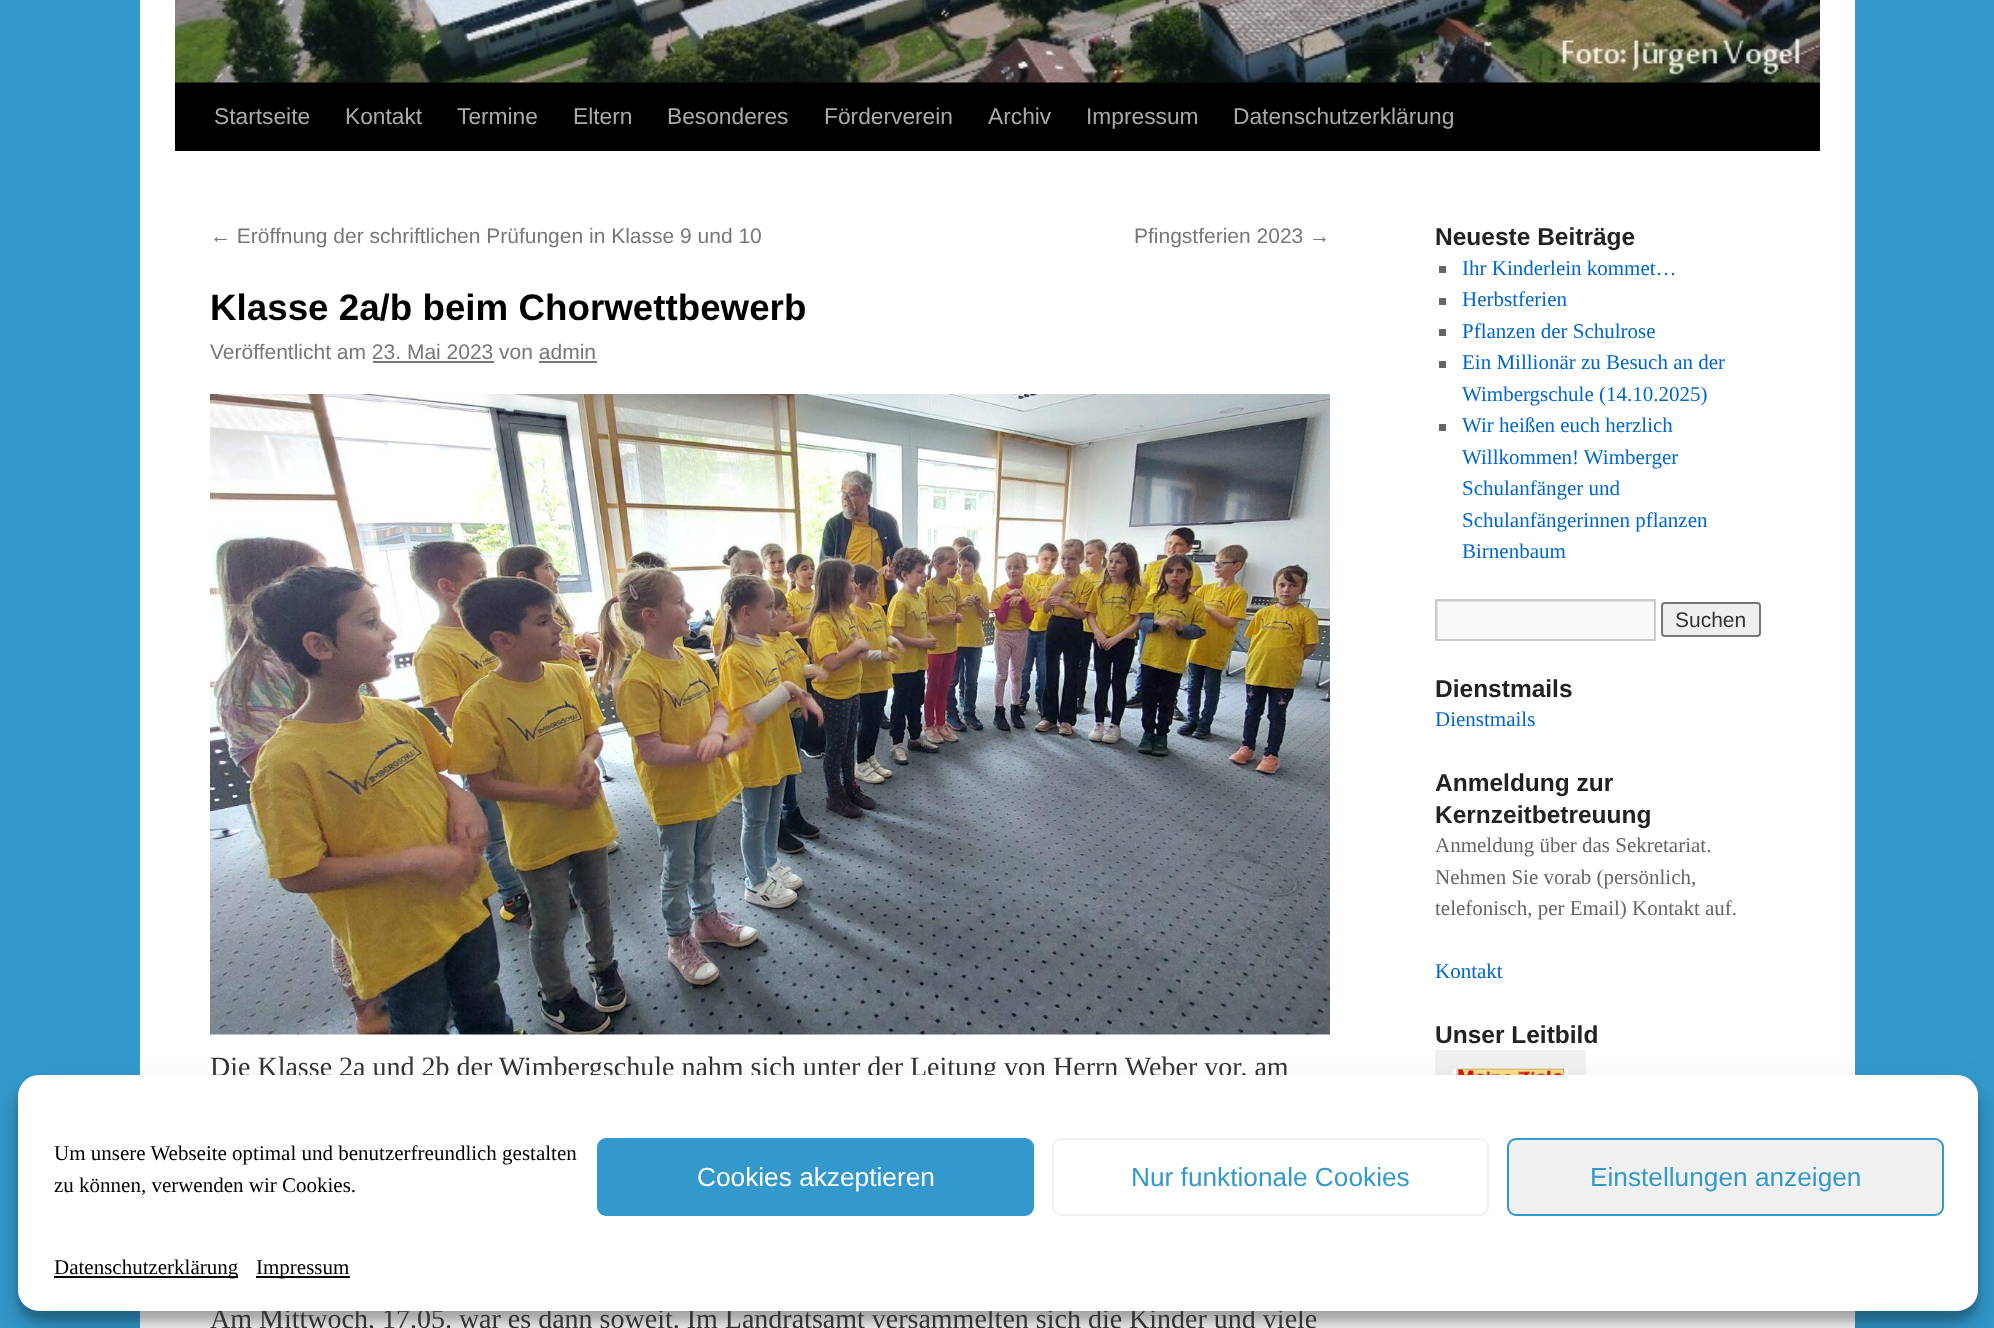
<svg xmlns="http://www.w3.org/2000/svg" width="1994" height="1328">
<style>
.a{font:22.75px Liberation Sans;fill:#aaa}
.b{font:21px Liberation Sans;fill:#777}
.c{font:bold 36.75px Liberation Sans;fill:#000}
.d{font:28px Liberation Serif;fill:#333}
.e{font:bold 24.5px Liberation Sans;fill:#222}
.f{font:21px Liberation Serif;fill:#06c}
.g{font:21px Liberation Sans;fill:#333}
.h{font:21px Liberation Serif;fill:#666}
.i{font:21px Liberation Serif;fill:#000}
.j{font:26.25px Liberation Sans;fill:#fff}
.k{font:26.25px Liberation Sans;fill:#39c}
</style>
<defs>
<clipPath id="clip1"><path d="M1437 600h217v39H1437z"/></clipPath>
</defs>
<rect width="100%" height="100%" fill="#39c"/>
<path fill="#fff" d="M140 0h1715v1328H140z"/>
<path fill="#000" d="M175 82h1645v69H175z"/>
<image href="1.png" x="175" y="0" width="1645" height="83"/>
<path fill="#777" d="M373 361h121v2H373z"/>
<path fill="#777" d="M539 361h58v2H539z"/>
<image href="2.png" x="210" y="394" width="1120" height="641"/>
<path fill="#666" d="M1439 266h7v7H1439z"/>
<path fill="#666" d="M1439 298h7v7H1439z"/>
<path fill="#666" d="M1439 329h7v7H1439z"/>
<path fill="#666" d="M1439 361h7v7H1439z"/>
<path fill="#666" d="M1439 424h7v7H1439z"/>
<path fill="#f9f9f9" d="M1438 602h216v37H1438z"/>
<g clip-path="url(#clip1)">
<path fill="#e0e0e0" fill-rule="evenodd" d="M1264 427h563v385h-563zm174 175h218v38h-218z"/>
</g>
<path fill="none" stroke="#ccc" stroke-width="2" d="M1436 600h219v40H1436z"/>
<rect fill="#efefef" stroke="#767676" stroke-width="2" x="1662" y="603" width="98" height="33" rx="3"/>
<path fill="none" stroke="#f1f1f1" stroke-width="18" d="M1444 1059h133v178H1444z"/>
<image href="3.png" x="1452" y="1068" width="116" height="7"/>
<rect fill="#0000003b" filter="blur(5px)" x="18" y="1085" width="1960" height="236" rx="21"/>
<rect fill="#00000030" filter="blur(17.5px)" x="18" y="1092" width="1960" height="236" rx="21"/>
<text class="a" x="214" y="124">Startseite</text>
<text class="a" x="345" y="124">Kontakt</text>
<text class="a" x="457" y="124">Termine</text>
<text class="a" x="573" y="124">Eltern</text>
<text class="a" x="667" y="124">Besonderes</text>
<text class="a" x="824" y="124">Förderverein</text>
<text class="a" x="988" y="124">Archiv</text>
<text class="a" x="1086" y="124">Impressum</text>
<text class="a" x="1233" y="124">Datenschutzerklärung</text>
<text class="b" x="210" y="243">← Eröffnung der schriftlichen Prüfungen in Klasse 9 und 10</text>
<text class="b" x="1134" y="243">Pfingstferien 2023 →</text>
<text class="c" x="210" y="320">Klasse 2a/b beim Chorwettbewerb</text>
<text class="b" x="210" y="359">Veröffentlicht am 23. Mai 2023 von admin</text>
<text class="d" x="210" y="1076">Die Klasse 2a und 2b der Wimbergschule nahm sich unter der Leitung von Herrn Weber vor, am</text>
<text class="d" x="210" y="1328">Am Mittwoch, 17.05. war es dann soweit. Im Landratsamt versammelten sich die Kinder und viele</text>
<text class="e" x="1435" y="245">Neueste Beiträge</text>
<text class="f" x="1462" y="275">Ihr Kinderlein kommet…</text>
<text class="f" x="1462" y="306">Herbstferien</text>
<text class="f" x="1462" y="338">Pflanzen der Schulrose</text>
<text class="f" x="1462" y="369">Ein Millionär zu Besuch an der</text>
<text class="f" x="1462" y="401">Wimbergschule (14.10.2025)</text>
<text class="f" x="1462" y="432">Wir heißen euch herzlich</text>
<text class="f" x="1462" y="464">Willkommen! Wimberger</text>
<text class="f" x="1462" y="495">Schulanfänger und</text>
<text class="f" x="1462" y="527">Schulanfängerinnen pflanzen</text>
<text class="f" x="1462" y="558">Birnenbaum</text>
<text class="g" x="1675" y="627">Suchen</text>
<text class="e" x="1435" y="697">Dienstmails</text>
<text class="f" x="1435" y="726">Dienstmails</text>
<text class="e" x="1435" y="791">Anmeldung zur</text>
<text class="e" x="1435" y="823">Kernzeitbetreuung</text>
<text class="h" x="1435" y="852">Anmeldung über das Sekretariat.</text>
<text class="h" x="1435" y="884">Nehmen Sie vorab (persönlich,</text>
<text class="h" x="1435" y="915">telefonisch, per Email) Kontakt auf.</text>
<text class="f" x="1435" y="978">Kontakt</text>
<text class="e" x="1435" y="1043">Unser Leitbild</text>
<rect fill="#fff" stroke="#fff" stroke-width="2" x="19" y="1076" width="1958" height="234" rx="20"/>
<text class="i" x="54" y="1160">Um unsere Webseite optimal und benutzerfreundlich gestalten</text>
<text class="i" x="54" y="1192">zu können, verwenden wir Cookies.</text>
<rect fill="#39c" stroke="#39c" stroke-width="2" x="598" y="1139" width="435" height="76" rx="8"/>
<text class="j" x="697" y="1186">Cookies akzeptieren</text>
<rect fill="none" stroke="#f1f1f1" stroke-width="2" x="1053" y="1139" width="435" height="76" rx="8"/>
<text class="k" x="1131" y="1186">Nur funktionale Cookies</text>
<rect fill="#f1f1f1" stroke="#39c" stroke-width="2" x="1508" y="1139" width="435" height="76" rx="8"/>
<text class="k" x="1590" y="1186">Einstellungen anzeigen</text>
<path fill="#000" d="M54 1276h184v2H54z"/>
<text class="i" x="54" y="1274">Datenschutzerklärung</text>
<path fill="#000" d="M256 1276h94v2H256z"/>
<text class="i" x="256" y="1274">Impressum</text>
</svg>
